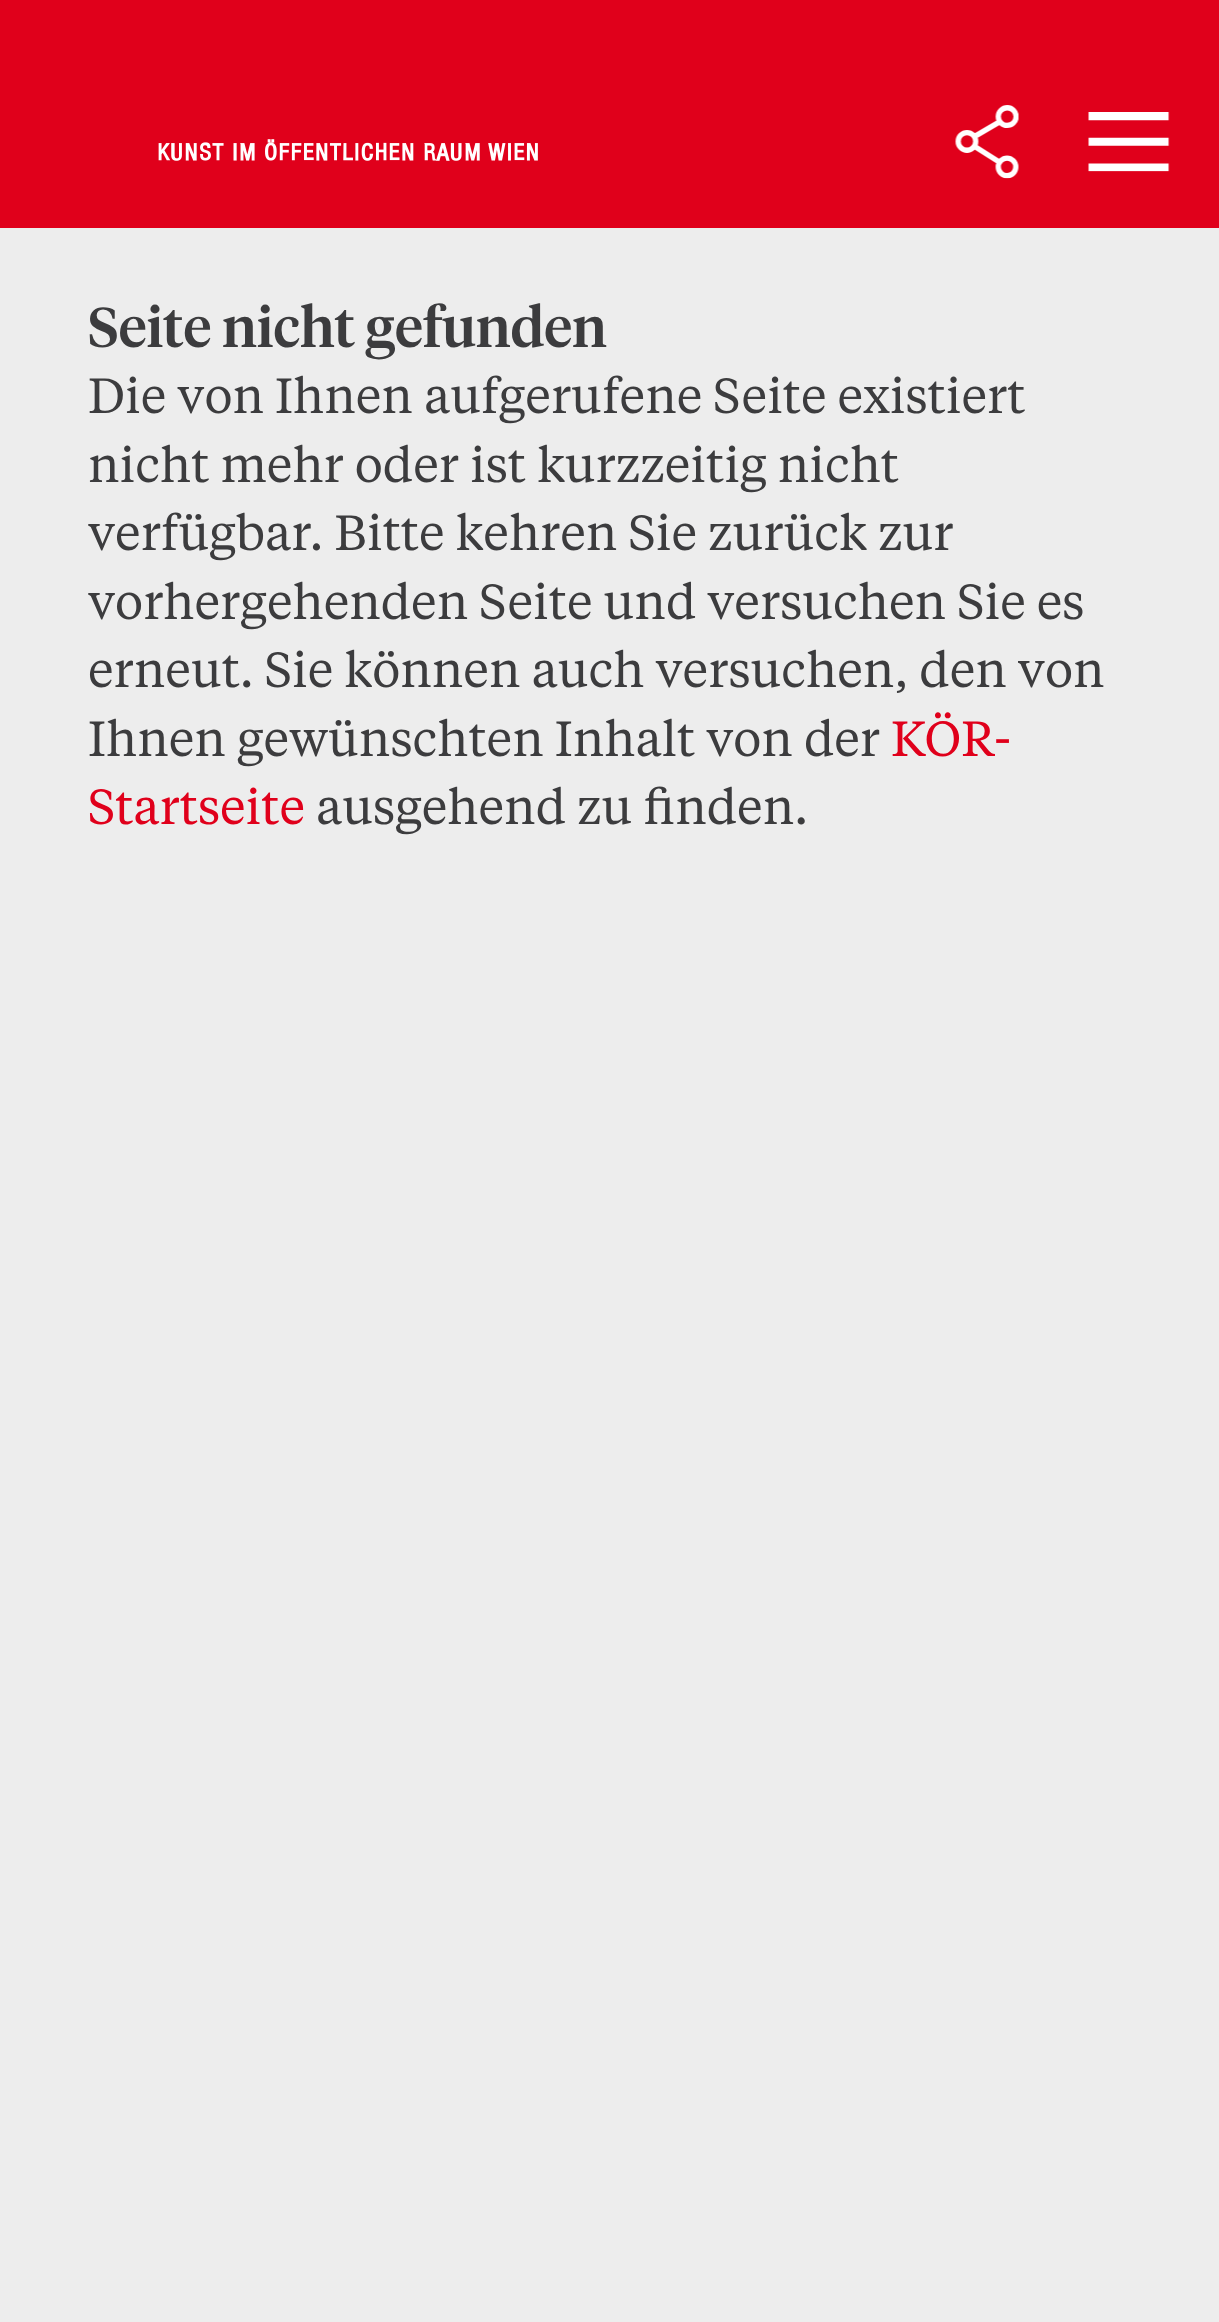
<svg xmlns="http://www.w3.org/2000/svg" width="1219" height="2322">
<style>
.a{font:500 56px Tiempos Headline;fill:#3c3c3e}
.b{font:49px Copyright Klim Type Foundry;fill:#3c3c3e}
.c{font:49px Copyright Klim Type Foundry;fill:#e0001b}
</style>
<rect width="100%" height="100%" fill="#ededed"/>
<path fill="#e0001b" d="M0 0h1219v228H0z"/>
<image href="1.png" x="158" y="139" width="380" height="22"/>
<image href="2.png" x="955" y="105" width="64" height="74"/>
<image href="3.png" x="1088" y="112" width="82" height="60"/>
<text class="a" x="88" y="347">Seite nicht gefunden</text>
<text class="b" x="88" y="413">Die von Ihnen aufgerufene Seite existiert</text>
<text class="b" x="88" y="482">nicht mehr oder ist kurzzeitig nicht</text>
<text class="b" x="88" y="550">verfügbar. Bitte kehren Sie zurück zur</text>
<text class="b" x="88" y="619">vorhergehenden Seite und versuchen Sie es</text>
<text class="b" x="88" y="687">erneut. Sie können auch versuchen, den von</text>
<text class="b" x="88" y="756">Ihnen gewünschten Inhalt von der</text>
<text class="c" x="891" y="756">KÖR-</text>
<text class="c" x="88" y="824">Startseite</text>
<text class="b" x="316" y="824">ausgehend zu finden.</text>
</svg>
